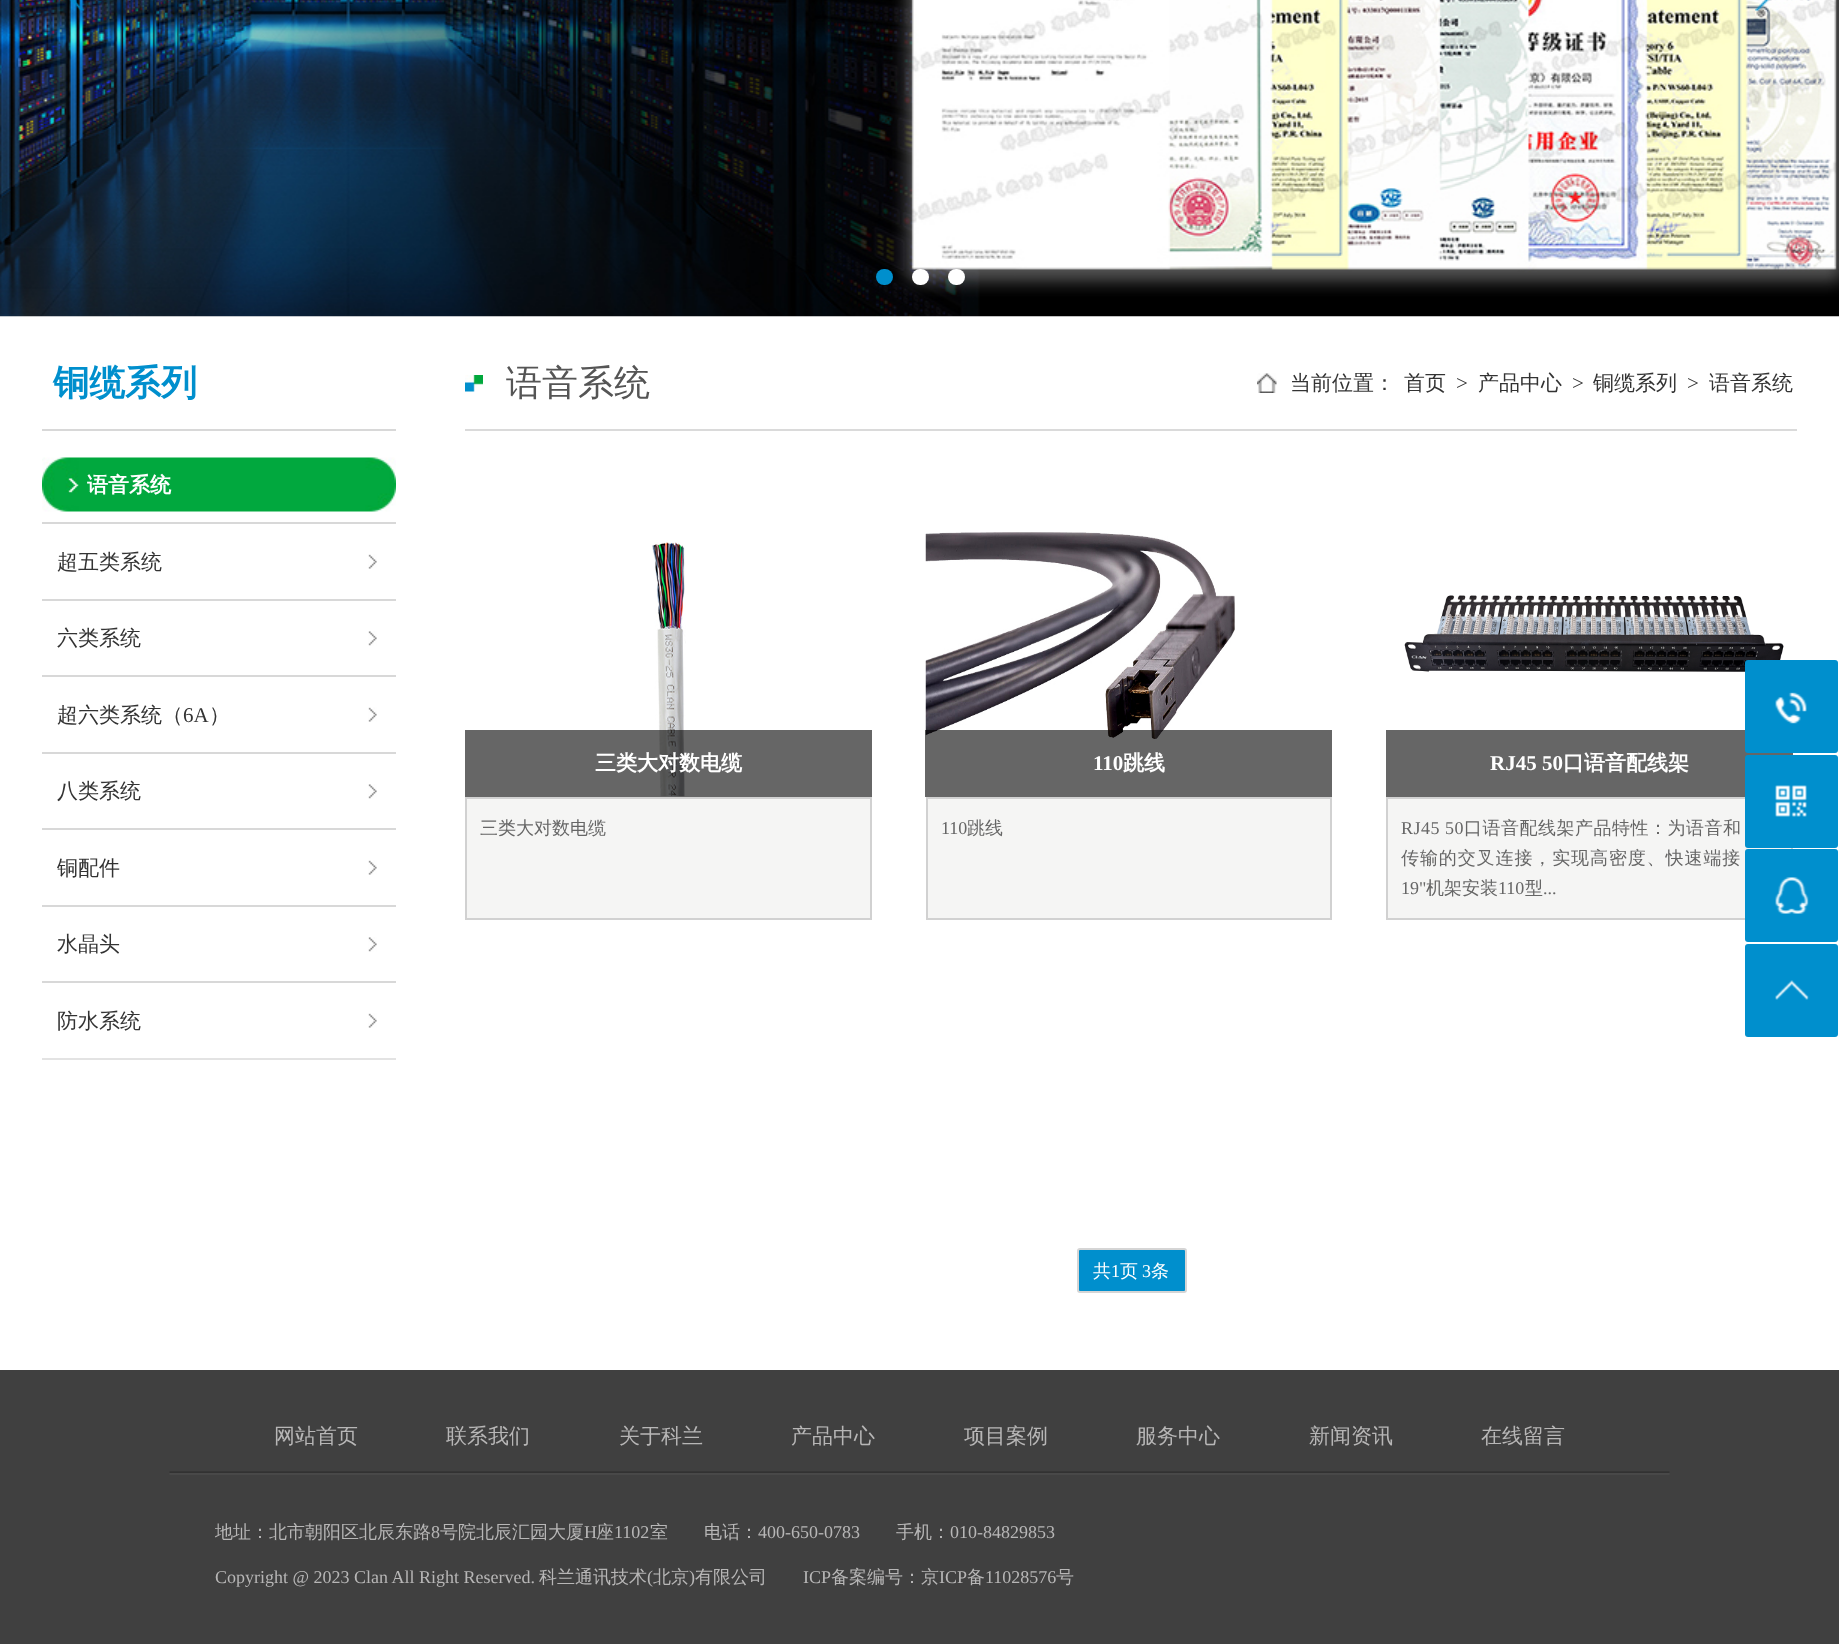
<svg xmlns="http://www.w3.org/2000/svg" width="1839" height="1644">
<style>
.a{font:bold 36px WenQuanYi Zen Hei;fill:#008fcd}
.b{font:bold 21px WenQuanYi Zen Hei;fill:#fff}
.c{font:500 21px WenQuanYi Zen Hei;fill:#333}
.d{font:21px Liberation Serif;fill:#333}
.e{font:500 36px WenQuanYi Zen Hei;fill:#555}
.f{font:500 18px WenQuanYi Zen Hei;fill:#666}
.g{font:bold 21px Liberation Serif;fill:#fff}
.h{font:18px Liberation Serif;fill:#666}
.i{font:18px Liberation Serif;letter-spacing:0.5px;fill:#666}
.j{font:500 18px WenQuanYi Zen Hei;letter-spacing:0.5px;fill:#666}
.k{font:500 18px WenQuanYi Zen Hei;letter-spacing:0.9px;fill:#666}
.l{font:500 18px WenQuanYi Zen Hei;fill:#fff}
.m{font:18px Liberation Serif;fill:#fff}
.n{font:500 21px WenQuanYi Zen Hei;fill:#b7b6b6}
.o{font:500 18px WenQuanYi Zen Hei;fill:#b7b6b6}
.p{font:18px Liberation Serif;fill:#b7b6b6}
</style>
<rect width="100%" height="100%" fill="#fff"/>
<image href="1.png" x="0" y="0" width="1839" height="317"/>
<image href="2.png" x="69" y="0" width="15" height="11"/>
<image href="3.png" x="1755" y="0" width="15" height="11"/>
<rect fill="#008fcd" x="876" y="269" width="17" height="16" rx="8"/>
<rect fill="#fff" x="912" y="269" width="17" height="16" rx="8"/>
<rect fill="#fff" x="948" y="269" width="17" height="16" rx="8"/>
<path fill="#e3e3e3" d="M42 1058h354v2H42z"/>
<path fill="#d8d8d8" d="M42 429h354v2H42z"/>
<image href="4.png" x="42" y="457" width="354" height="55"/>
<image href="5.png" x="368" y="554" width="9" height="15"/>
<path fill="#d8d8d8" d="M42 522h354v2H42z"/>
<image href="6.png" x="368" y="631" width="9" height="15"/>
<path fill="#d8d8d8" d="M42 599h354v2H42z"/>
<image href="5.png" x="368" y="707" width="9" height="15"/>
<path fill="#d8d8d8" d="M42 675h354v2H42z"/>
<image href="6.png" x="368" y="784" width="9" height="15"/>
<path fill="#d8d8d8" d="M42 752h354v2H42z"/>
<image href="5.png" x="368" y="860" width="9" height="15"/>
<path fill="#d8d8d8" d="M42 828h354v2H42z"/>
<image href="6.png" x="368" y="937" width="9" height="15"/>
<path fill="#d8d8d8" d="M42 905h354v2H42z"/>
<image href="5.png" x="368" y="1013" width="9" height="15"/>
<path fill="#d8d8d8" d="M42 981h354v2H42z"/>
<image href="7.png" x="465" y="375" width="18" height="17"/>
<path fill="#dadada" d="M465 429h1332v2H465z"/>
<image href="8.png" x="1257" y="373" width="20" height="20"/>
<image href="9.png" x="652" y="542" width="34" height="255"/>
<path fill="#00000099" d="M465 730h407v67H465z"/>
<path fill="#f5f5f4" stroke="#d1d1d1" stroke-width="2" d="M466 798h405v121H466z"/>
<image href="10.png" x="925" y="532" width="310" height="207"/>
<path fill="#00000099" d="M925 730h407v67H925z"/>
<path fill="#f5f5f4" stroke="#d1d1d1" stroke-width="2" d="M927 798h404v121H927z"/>
<image href="11.png" x="1404" y="595" width="380" height="77"/>
<path fill="#666" d="M1386 730h407v67H1386z"/>
<path fill="#f5f5f4" stroke="#d1d1d1" stroke-width="2" d="M1387 798h405v121H1387z"/>
<rect fill="#008fcd" stroke="#d5d5d5" stroke-width="2" x="1078" y="1249" width="108" height="43" rx="2"/>
<rect fill="#008fcd" x="1745" y="660" width="93" height="93" rx="3"/>
<image href="12.png" x="1775" y="692" width="32" height="32"/>
<rect fill="#008fcd" x="1745" y="755" width="93" height="93" rx="3"/>
<image href="13.png" x="1775" y="785" width="32" height="32"/>
<rect fill="#008fcd" x="1745" y="849" width="93" height="93" rx="3"/>
<image href="14.png" x="1775" y="877" width="34" height="37"/>
<rect fill="#008fcd" x="1745" y="944" width="93" height="93" rx="3"/>
<image href="15.png" x="1775" y="980" width="34" height="20"/>
<path fill="#404040" d="M0 1370h1839v274H0z"/>
<image href="16.png" x="169" y="1471" width="1501" height="4"/>
<text class="a" x="53" y="395">铜缆系列</text>
<text class="b" x="87" y="492">语音系统</text>
<text class="c" x="57" y="569">超五类系统</text>
<text class="c" x="57" y="645">六类系统</text>
<text class="c" x="57" y="722">超六类系统（</text>
<text class="d" x="183" y="722">6A</text>
<text class="c" x="209" y="722">）</text>
<text class="c" x="57" y="798">八类系统</text>
<text class="c" x="57" y="875">铜配件</text>
<text class="c" x="57" y="951">水晶头</text>
<text class="c" x="57" y="1028">防水系统</text>
<text class="e" x="506" y="395">语音系统</text>
<text class="c" x="1290" y="390">当前位置：</text>
<text class="c" x="1404" y="390">首页</text>
<text class="d" x="1456" y="390">&gt;</text>
<text class="c" x="1478" y="390">产品中心</text>
<text class="d" x="1572" y="390">&gt;</text>
<text class="c" x="1593" y="390">铜缆系列</text>
<text class="d" x="1687" y="390">&gt;</text>
<text class="c" x="1709" y="390">语音系统</text>
<text class="b" x="595" y="770">三类大对数电缆</text>
<text class="f" x="480" y="834">三类大对数电缆</text>
<text class="g" x="1093" y="770">110</text>
<text class="b" x="1123" y="770">跳线</text>
<text class="h" x="941" y="834">110</text>
<text class="f" x="967" y="834">跳线</text>
<text class="g" x="1490" y="770">RJ45 50</text>
<text class="b" x="1563" y="770">口语音配线架</text>
<text class="i" x="1401" y="834">RJ45 50</text>
<text class="j" x="1464" y="834">口语音配线架产品特性：为语音和</text>
<text class="k" x="1401" y="864">传输的交叉连接，实现高密度、快速端接</text>
<text class="h" x="1401" y="894">19"</text>
<text class="f" x="1426" y="894">机架安装</text>
<text class="h" x="1498" y="894">110</text>
<text class="f" x="1525" y="894">型</text>
<text class="h" x="1543" y="894">...</text>
<text class="l" x="1093" y="1277">共</text>
<text class="m" x="1111" y="1277">1</text>
<text class="l" x="1120" y="1277">页</text>
<text class="m" x="1142" y="1277">3</text>
<text class="l" x="1151" y="1277">条</text>
<text class="n" x="274" y="1443">网站首页</text>
<text class="n" x="446" y="1443">联系我们</text>
<text class="n" x="619" y="1443">关于科兰</text>
<text class="n" x="791" y="1443">产品中心</text>
<text class="n" x="964" y="1443">项目案例</text>
<text class="n" x="1136" y="1443">服务中心</text>
<text class="n" x="1309" y="1443">新闻资讯</text>
<text class="n" x="1481" y="1443">在线留言</text>
<text class="o" x="215" y="1538">地址：北市朝阳区北辰东路</text>
<text class="p" x="431" y="1538">8</text>
<text class="o" x="440" y="1538">号院北辰汇园大厦</text>
<text class="p" x="584" y="1538">H</text>
<text class="o" x="596" y="1538">座</text>
<text class="p" x="614" y="1538">1102</text>
<text class="o" x="650" y="1538">室　　电话：</text>
<text class="p" x="758" y="1538">400-650-0783</text>
<text class="o" x="896" y="1538">手机：</text>
<text class="p" x="950" y="1538">010-84829853</text>
<text class="p" x="215" y="1583">Copyright @ 2023 Clan All Right Reserved.</text>
<text class="o" x="539" y="1583">科兰通讯技术</text>
<text class="p" x="647" y="1583">(</text>
<text class="o" x="653" y="1583">北京</text>
<text class="p" x="689" y="1583">)</text>
<text class="o" x="695" y="1583">有限公司</text>
<text class="p" x="803" y="1583">ICP</text>
<text class="o" x="831" y="1583">备案编号：京</text>
<text class="p" x="939" y="1583">ICP</text>
<text class="o" x="967" y="1583">备</text>
<text class="p" x="985" y="1583">11028576</text>
<text class="o" x="1056" y="1583">号</text>
</svg>
